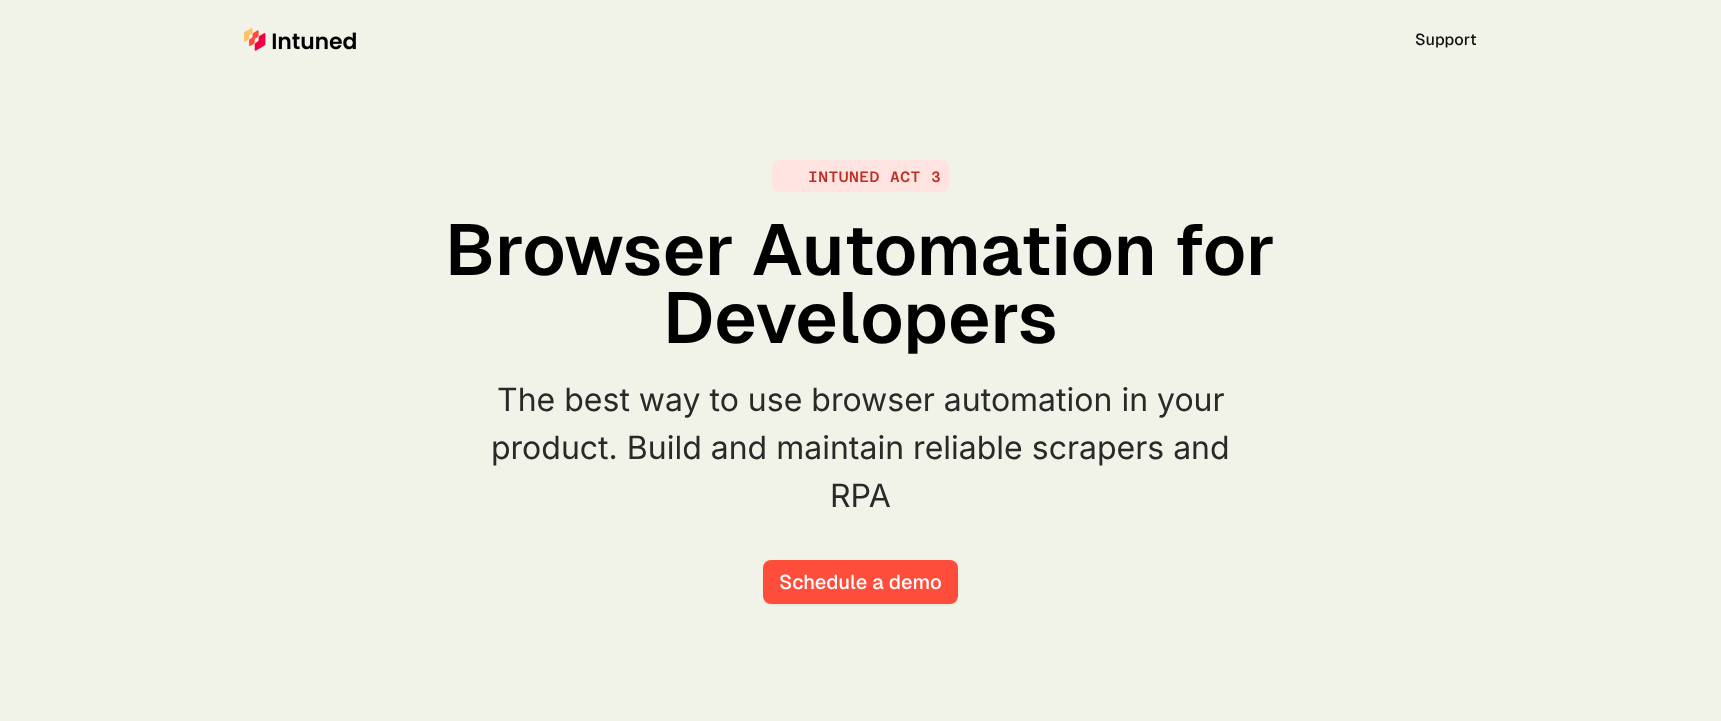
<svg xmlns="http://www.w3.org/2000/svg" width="1721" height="721">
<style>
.a{font:500 16px Geist;fill:#101010}
.b{font:500 15px Azeret Mono;letter-spacing:0.5px;fill:#bf2d22}
.c{font:600 72px Geist;fill:#000}
.d{font:32px Inter;fill:#292929}
.e{font:500 20px Geist;fill:#fff}
</style>
<rect width="100%" height="100%" fill="#f1f2e8"/>
<image href="1.png" x="244" y="28" width="112" height="23"/>
<rect fill="#ffe3e0" x="772" y="160" width="177" height="32" rx="8"/>
<rect fill="none" stroke="#ffe3e0" x="772.5" y="160.5" width="176" height="31" rx="7.5"/>
<rect fill="#00000014" filter="blur(1px)" x="764" y="563" width="193" height="42" rx="7"/>
<rect fill="#ff4d3c" x="763" y="560" width="195" height="44" rx="8"/>
<text class="a" x="1415" y="45">Support</text>
<text class="b" x="808" y="182">INTUNED ACT 3</text>
<text class="c" x="445" y="275">Browser Automation for</text>
<text class="c" x="663" y="343">Developers</text>
<text class="d" x="497" y="411">The best way to use browser automation in your</text>
<text class="d" x="491" y="459">product. Build and maintain reliable scrapers and</text>
<text class="d" x="830" y="507">RPA</text>
<text class="e" x="779" y="589">Schedule a demo</text>
</svg>
